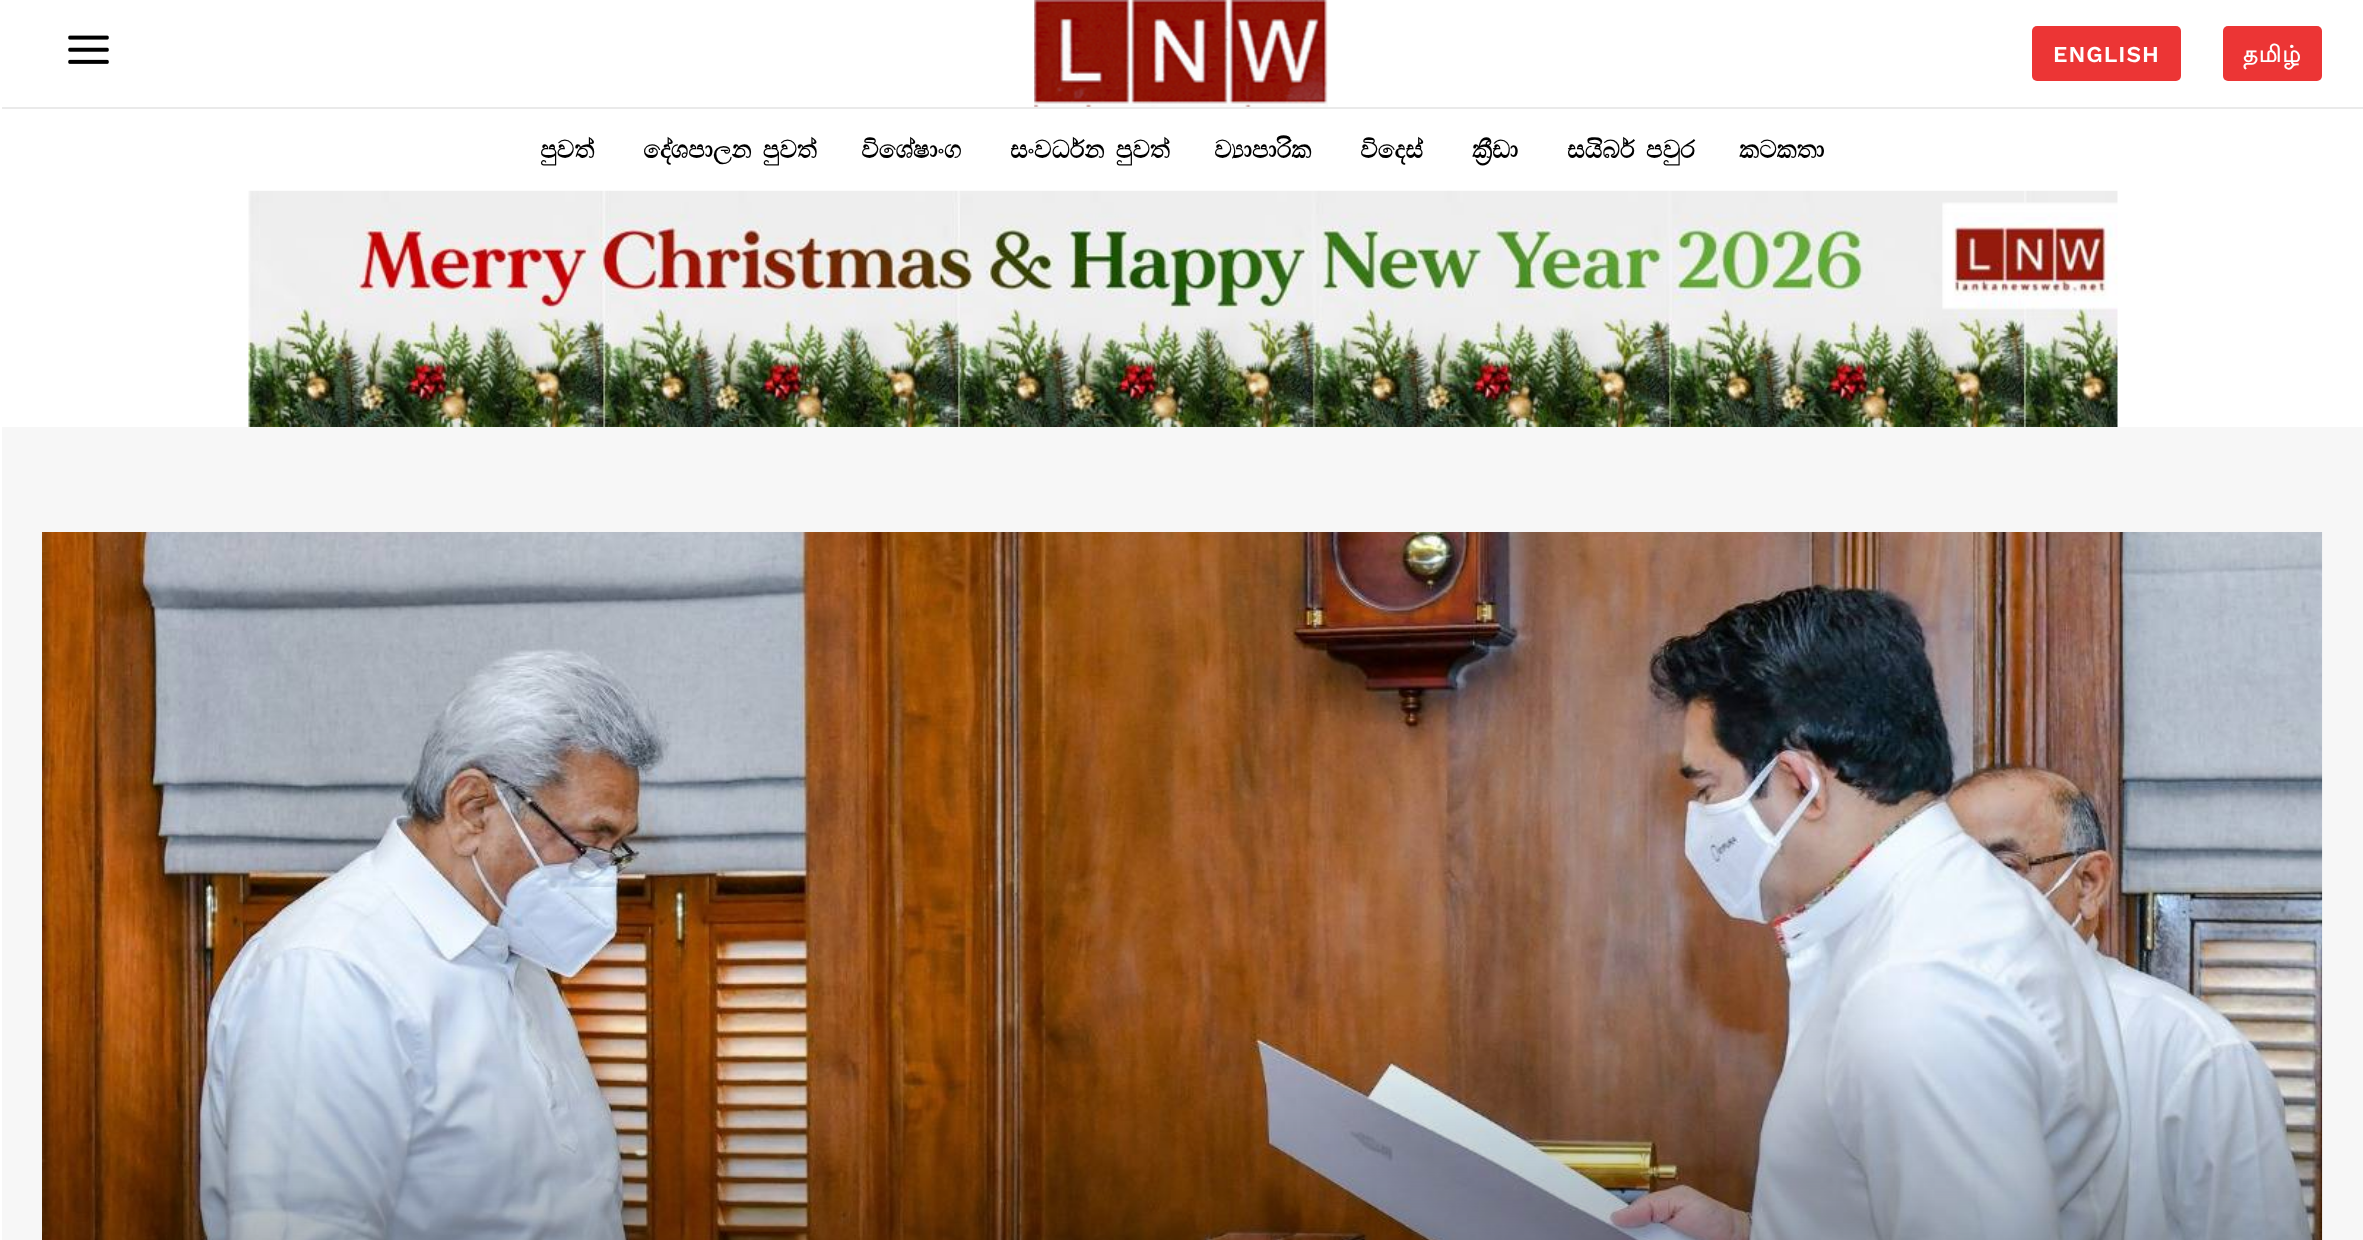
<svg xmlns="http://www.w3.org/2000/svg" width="2363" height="1240">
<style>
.a{font:600 22.75px Work Sans;letter-spacing:1px;fill:#fff}
.b{font:bold 22.75px Lohit Tamil;letter-spacing:1px;fill:#fff}
.c{font:bold 24.5px FreeSerif;fill:#000}
</style>
<rect width="100%" height="100%" fill="#fff"/>
<image href="1.png" x="68" y="35" width="41" height="29"/>
<image href="2.png" x="1034" y="0" width="294" height="107"/>
<rect fill="#ec3535" x="2032" y="26" width="149" height="55" rx="5"/>
<rect fill="#ec3535" x="2223" y="26" width="99" height="55" rx="5"/>
<path fill="#eaeaea" d="M2 107h2361v2H2z"/>
<image href="3.png" x="248" y="190" width="1870" height="237"/>
<path fill="#f7f7f7" d="M2 427h2361v813H2z"/>
<image href="4.png" x="42" y="532" width="2281" height="708"/>
<text class="a" x="2053" y="62">ENGLISH</text>
<text class="b" x="2243" y="62">தமிழ்</text>
<text class="c" x="540" y="158">පුවත්</text>
<text class="c" x="643" y="158" word-spacing="-1">දේශපාලන පුවත්</text>
<text class="c" x="861" y="158">විශේෂාංග</text>
<text class="c" x="1010" y="158" word-spacing="-1">සංවර්ධන පුවත්</text>
<text class="c" x="1214" y="158">ව්‍යාපාරික</text>
<text class="c" x="1360" y="158">විදෙස්</text>
<text class="c" x="1472" y="158">ක්‍රීඩා</text>
<text class="c" x="1567" y="158" word-spacing="-1">සයිබර් පවුර</text>
<text class="c" x="1739" y="158">කටකතා</text>
</svg>
